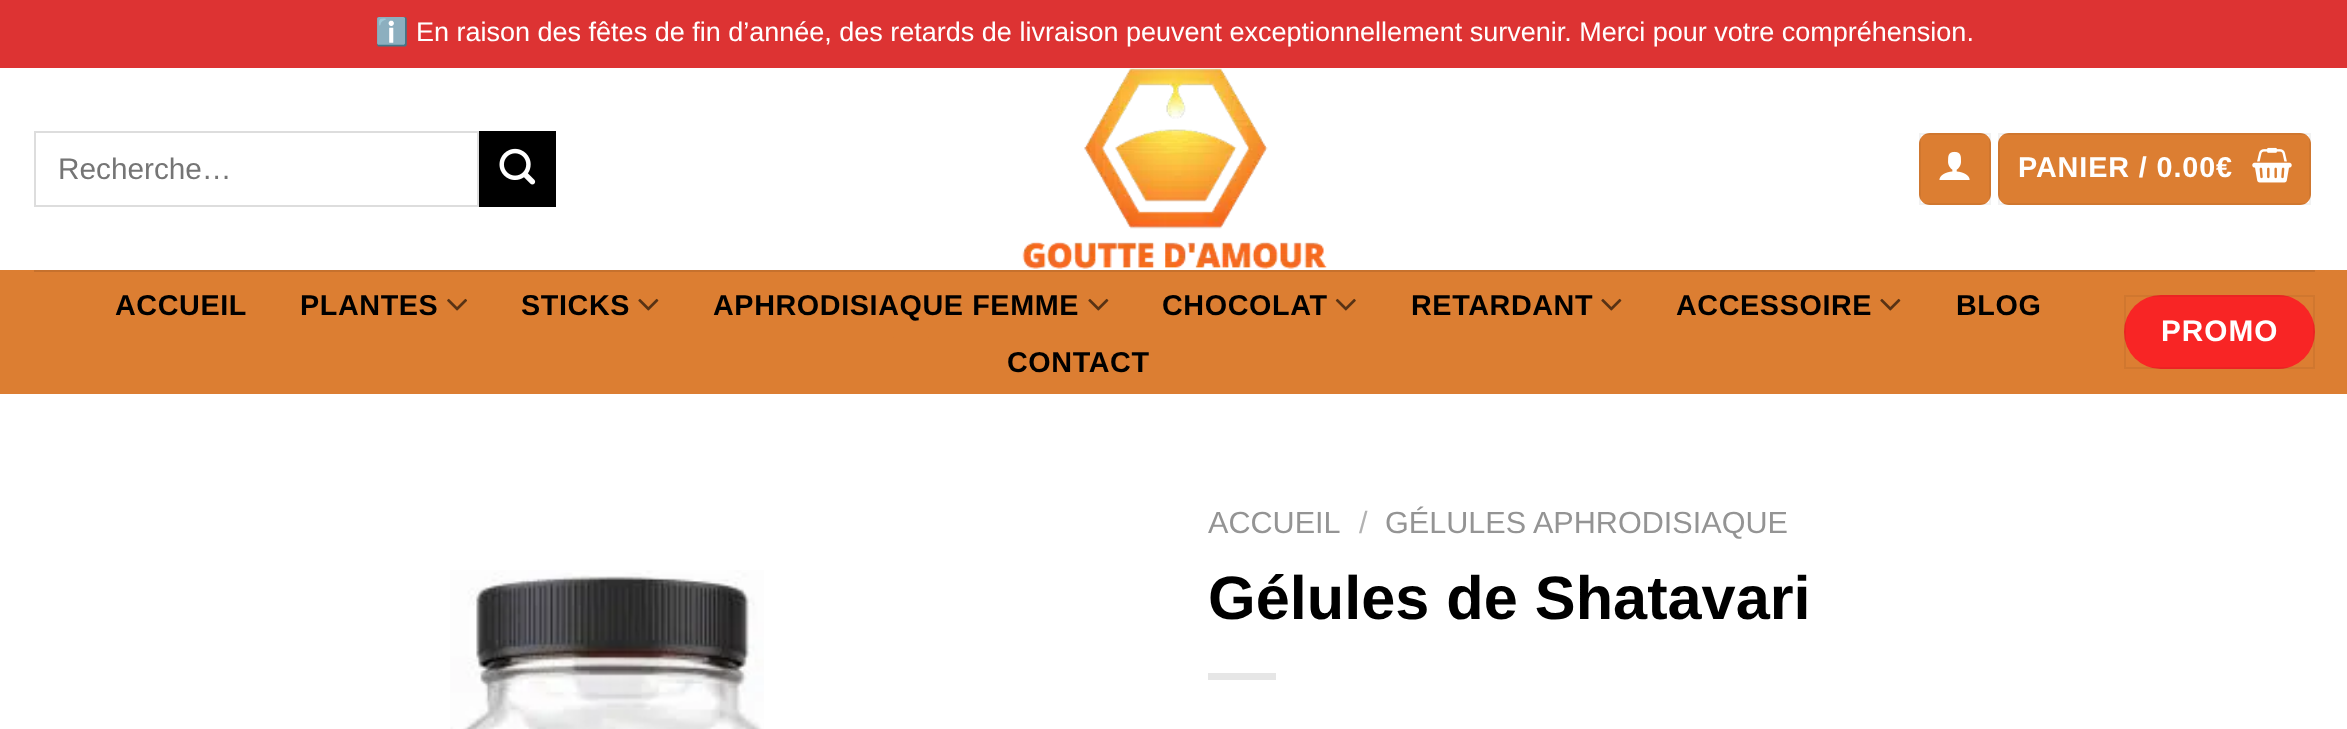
<svg xmlns="http://www.w3.org/2000/svg" width="2347" height="729">
<style>
.a{font:27px Noto Color Emoji;fill:#fff}
.b{font:27px Liberation Sans;fill:#fff}
.c{font:29.75px Liberation Sans;fill:#757575}
.d{font:bold 28.75px Liberation Sans;letter-spacing:0.9px;fill:#fff}
.e{font:bold 28.75px Liberation Sans;letter-spacing:0.6px;fill:#000}
.f{font:bold 29.75px Liberation Sans;letter-spacing:1px;fill:#fff}
.g{font:30.6px Liberation Sans;fill:#949494}
.h{font:30.6px Liberation Sans;fill:#b2b2b2}
.i{font:bold 61.25px Liberation Sans;fill:#000}
</style>
<rect width="100%" height="100%" fill="#fff"/>
<path fill="#d33" d="M0 0h2347v68H0z"/>
<path fill="none" stroke="#ddd" stroke-width="2" d="M35 132h443v74H35z"/>
<path fill="#000" d="M479 131h77v76H479z"/>
<image href="1.png" x="499" y="148" width="37" height="37"/>
<image href="2.png" x="1022" y="68" width="305" height="201"/>
<rect fill="#dc7e32" x="1919" y="133" width="72" height="72" rx="11"/>
<path fill="none" stroke="#0000000d" stroke-width="2" d="M1920 134h70v70H1920z"/>
<image href="3.png" x="1939" y="151" width="31" height="29"/>
<rect fill="#dc7e32" x="1998" y="133" width="313" height="72" rx="11"/>
<path fill="none" stroke="#0000000d" stroke-width="2" d="M1999 134h311v70H1999z"/>
<image href="4.png" x="2252" y="147" width="40" height="36"/>
<path fill="#dc7e32" d="M0 270h2347v124H0z"/>
<path fill="#c6712d" d="M34 270h2281v2H34z"/>
<image href="5.png" x="447" y="298" width="20" height="13"/>
<image href="6.png" x="638" y="298" width="21" height="13"/>
<image href="6.png" x="1088" y="298" width="21" height="13"/>
<image href="7.png" x="1335" y="298" width="21" height="13"/>
<image href="6.png" x="1601" y="298" width="21" height="13"/>
<image href="6.png" x="1880" y="298" width="21" height="13"/>
<rect fill="#f82525" x="2124" y="295" width="191" height="74" rx="37"/>
<path fill="none" stroke="#0000000d" stroke-width="2" d="M2125 296h189v72H2125z"/>
<image href="8.png" x="450" y="570" width="314" height="159"/>
<path fill="#e6e6e6" d="M1208 673h68v7H1208z"/>
<text class="a" x="375" y="41">ℹ️</text>
<text class="b" x="416" y="41">En raison des fêtes de fin d’année, des retards de livraison peuvent exceptionnellement survenir. Merci pour votre compréhension.</text>
<text class="c" x="58" y="179">Recherche…</text>
<text class="d" x="2018" y="177">PANIER / 0.00€</text>
<text class="e" x="115" y="315">ACCUEIL</text>
<text class="e" x="300" y="315">PLANTES</text>
<text class="e" x="521" y="315">STICKS</text>
<text class="e" x="713" y="315">APHRODISIAQUE FEMME</text>
<path fill="#dc7e32" d="M929 337.5h-36l18-18z"/>
<text class="e" x="1162" y="315">CHOCOLAT</text>
<text class="e" x="1411" y="315">RETARDANT</text>
<text class="e" x="1676" y="315">ACCESSOIRE</text>
<text class="e" x="1956" y="315">BLOG</text>
<text class="e" x="1007" y="372">CONTACT</text>
<text class="f" x="2161" y="341">PROMO</text>
<text class="g" x="1208" y="533">ACCUEIL</text>
<text class="h" x="1359" y="533">/</text>
<text class="g" x="1385" y="533">GÉLULES APHRODISIAQUE</text>
<text class="i" x="1208" y="619">Gélules de Shatavari</text>
</svg>
